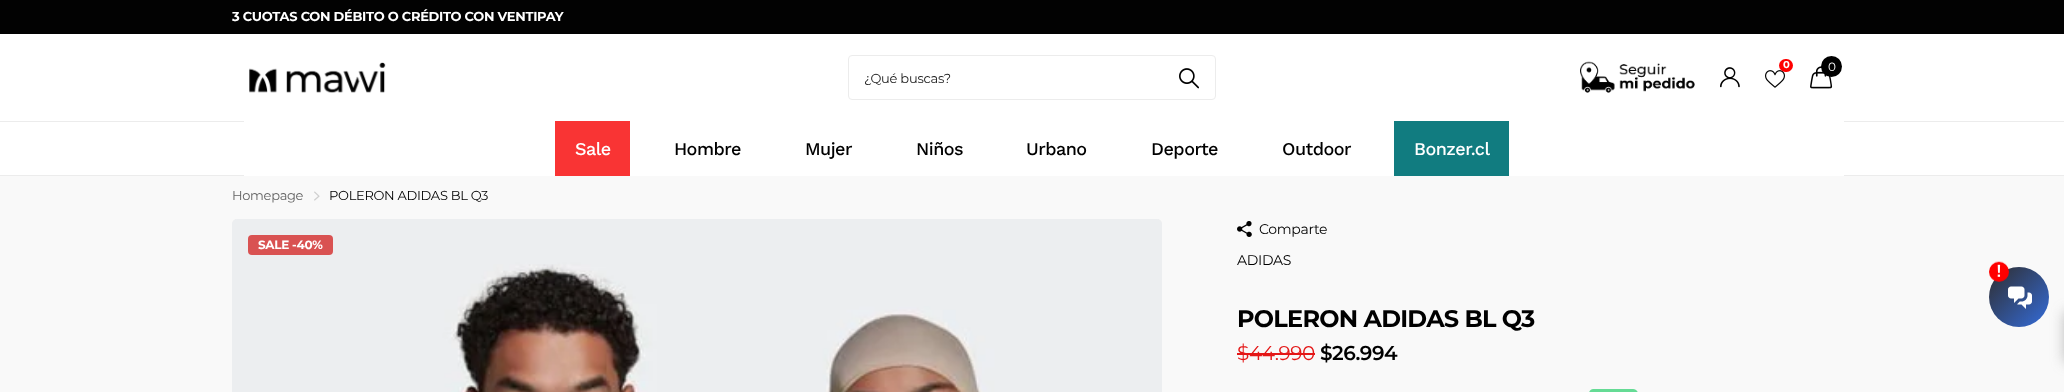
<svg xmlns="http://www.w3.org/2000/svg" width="2064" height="392">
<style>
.a{font:bold 13px Montserrat;letter-spacing:-0.3px;fill:#fff}
.b{font:13px Montserrat;letter-spacing:-0.25px;fill:#1a1a1a}
.c{font:bold 10px Montserrat;letter-spacing:-0.3px;fill:#fff}
.d{font:12px Montserrat;fill:#fff}
.e{font:500 18px Work Sans;letter-spacing:-0.5px;fill:#fff}
.f{font:500 18px Work Sans;letter-spacing:-0.5px;fill:#000}
.g{font:13px Montserrat;letter-spacing:-0.3px;fill:#646464}
.h{font:13px Montserrat;letter-spacing:-0.3px;fill:#000}
.i{font:bold 12px Montserrat;letter-spacing:-0.3px;fill:#fff}
.j{font:14px Montserrat;letter-spacing:-0.3px;fill:#000}
.k{font:bold 24px Montserrat;letter-spacing:-0.75px;fill:#000}
.l{font:20px Montserrat;letter-spacing:-0.5px;fill:#e41717}
.m{font:600 20px Montserrat;letter-spacing:-0.5px;fill:#000}
</style>
<rect width="100%" height="100%" fill="#f9f9f9"/>
<path fill="#020202" d="M0 0h2064v34H0z"/>
<path fill="#fff" d="M0 34h2064v141H0z"/>
<path fill="#ececec" d="M0 175h2064v1H0z"/>
<image href="1.png" x="249" y="62" width="137" height="31"/>
<rect fill="none" stroke="#ececec" x="848.5" y="55.5" width="367" height="44" rx="3.5"/>
<image href="2.png" x="1179" y="68" width="20" height="21"/>
<image href="3.png" x="1580" y="61" width="115" height="32"/>
<image href="4.png" x="1720" y="67" width="20" height="21"/>
<image href="5.png" x="1765" y="70" width="20" height="18"/>
<rect fill="#f00" x="1779" y="59" width="14" height="13" rx="6.5"/>
<image href="6.png" x="1810" y="66" width="23" height="23"/>
<circle fill="#000" cx="1831.5" cy="66.5" r="10.5"/>
<path fill="#ececec" d="M0 121h2064v1H0z"/>
<path fill="#fff" d="M244 121h1600v55H244z"/>
<path fill="#f93434" d="M555 121h75v55H555z"/>
<path fill="#117c80" d="M1394 121h115v55H1394z"/>
<image href="7.png" x="314" y="191" width="6" height="10"/>
<rect fill="#efefef" x="232" y="219" width="930" height="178" rx="5"/>
<image href="8.png" x="232" y="219" width="930" height="173"/>
<rect fill="#d95252" x="248" y="235" width="85" height="20" rx="4"/>
<image href="9.png" x="1237" y="221" width="15" height="16"/>
<path fill="#e41717" d="M1237 353h78v2H1237z"/>
<image href="10.png" x="1589" y="389" width="49" height="3"/>
<path fill="#75757580" filter="blur(7px)" d="M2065 312h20v50H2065z"/>
<image href="11.png" x="1989" y="261" width="60" height="66"/>
<text class="a" x="232" y="21">3 CUOTAS CON DÉBITO O CRÉDITO CON VENTIPAY</text>
<text class="b" x="864" y="83">¿Qué buscas?</text>
<text class="c" x="1783" y="68">0</text>
<text class="d" x="1828" y="71">0</text>
<text class="e" x="575" y="155">Sale</text>
<text class="f" x="674" y="155">Hombre</text>
<text class="f" x="805" y="155">Mujer</text>
<text class="f" x="916" y="155">Niños</text>
<text class="f" x="1026" y="155">Urbano</text>
<text class="f" x="1151" y="155">Deporte</text>
<text class="f" x="1282" y="155">Outdoor</text>
<text class="e" x="1414" y="155">Bonzer.cl</text>
<text class="g" x="232" y="200">Homepage</text>
<text class="h" x="329" y="200">POLERON ADIDAS BL Q3</text>
<text class="i" x="258" y="249">SALE -40%</text>
<text class="j" x="1259" y="234">Comparte</text>
<text class="j" x="1237" y="265">ADIDAS</text>
<text class="k" x="1237" y="327">POLERON ADIDAS BL Q3</text>
<text class="l" x="1237" y="360">$44.990</text>
<text class="m" x="1320" y="360">$26.994</text>
</svg>
